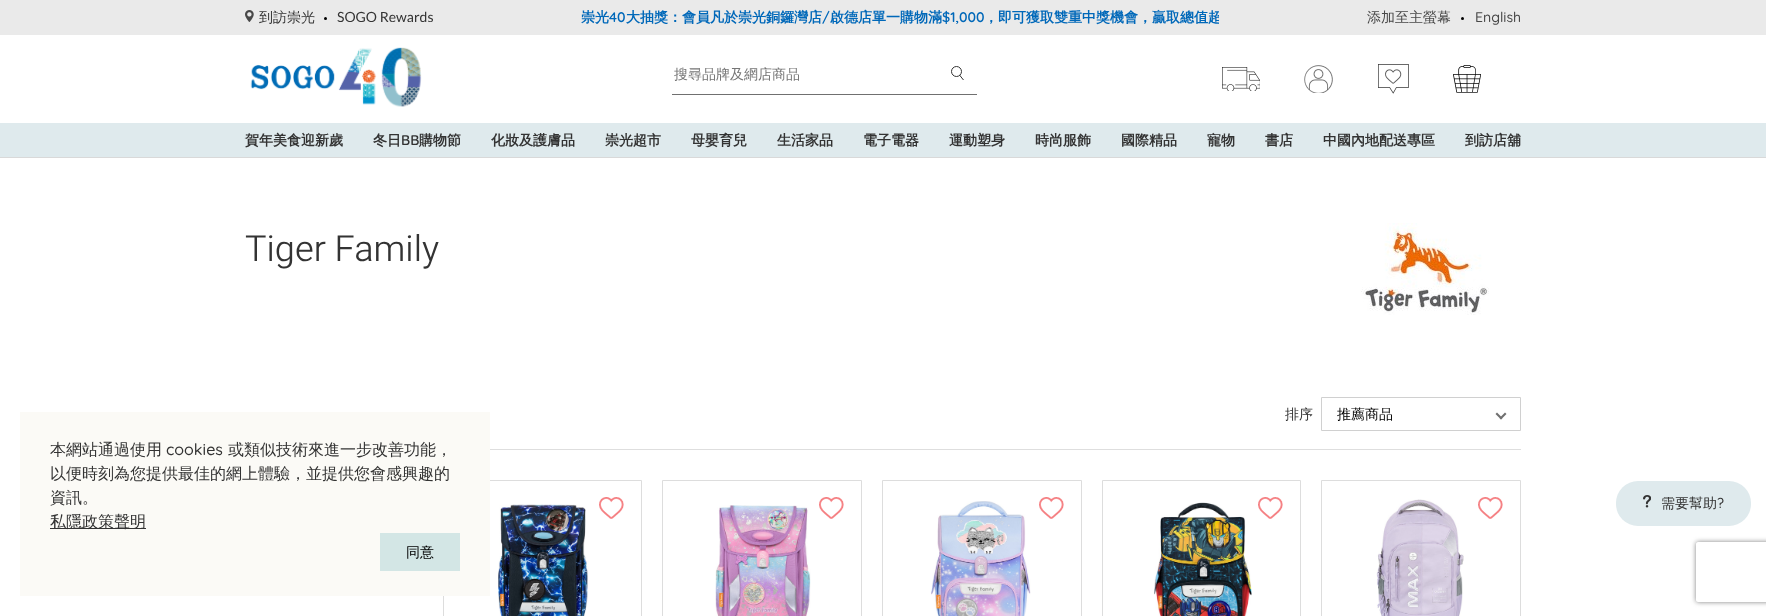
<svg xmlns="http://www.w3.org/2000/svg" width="1766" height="616">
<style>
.a{font:500 14px WenQuanYi Zen Hei;fill:#333}
.b{font:14px Lato;fill:#333}
.c{font:bold 14px WenQuanYi Zen Hei;fill:#0068b9}
.d{font:600 14px Quicksand;fill:#0068b9}
.e{font:500 14px WenQuanYi Zen Hei;fill:#484848}
.f{font:500 14px Quicksand;fill:#484848}
.g{font:500 14px WenQuanYi Zen Hei;fill:#757575}
.h{font:bold 14px WenQuanYi Zen Hei;fill:#333}
.i{font:600 14px Quicksand;fill:#333}
.j{font:300 36px Heebo;fill:#333}
.k{font:500 14px WenQuanYi Zen Hei;fill:#000}
.l{font:500 16px WenQuanYi Zen Hei;fill:#333}
.m{font:500 16px Quicksand;fill:#333}
.n{font:500 14px Quicksand;fill:#333}
</style>
<defs>
<clipPath id="clip1"><path d="M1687 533h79v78h-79zm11 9h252c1 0 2 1 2 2v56c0 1-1 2-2 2h-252c-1 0-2-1-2-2v-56c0-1 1-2 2-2z" clip-rule="evenodd"/></clipPath>
<clipPath id="clip2"><path d="M581 8h638v19H581z"/></clipPath>
</defs>
<rect width="100%" height="100%" fill="#fff"/>
<path fill="#eaeaea" d="M0 0h1766v35H0z"/>
<image href="1.png" x="245" y="10" width="9" height="12"/>
<circle fill="#000" cx="325.5" cy="18.5" r="1.5"/>
<circle fill="#000" cx="1462.5" cy="18.5" r="1.5"/>
<image href="2.png" x="250" y="47" width="172" height="60"/>
<path fill="#707070" d="M672 94h305v1H672z"/>
<circle fill="none" stroke="#333" cx="956.5" cy="71.5" r="5"/>
<path fill="none" stroke="#333" d="M959.5 75l4 5"/>
<image href="3.png" x="1222" y="67" width="38" height="24"/>
<image href="4.png" x="1304" y="65" width="29" height="28"/>
<image href="5.png" x="1378" y="64" width="31" height="30"/>
<image href="6.png" x="1453" y="65" width="28" height="28"/>
<path fill="#dfeaed" d="M0 123h1766v34H0z"/>
<path fill="#d9d9d9" d="M0 157h1766v1H0z"/>
<image href="7.png" x="1361" y="223" width="128" height="92"/>
<path fill="#dedede" d="M490 449h1031v1H490z"/>
<path fill="none" stroke="#d0d0d0" d="M1321.5 397.5h199v33H1321.5z"/>
<path fill="#707070" d="M1505 412.5l1.5 1.5l-5.5 5.5l-1.5-1.5z"/>
<path fill="#707070" d="M1497 412.5l5.5 5.5l-1.5 1.5l-5.5-5.5z"/>
<path fill="none" stroke="#ddd" d="M443.5 480.5h198v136H443.5z"/>
<image href="8.png" x="498" y="504" width="91" height="112"/>
<image href="9.png" x="599" y="497" width="25" height="22"/>
<path fill="none" stroke="#ddd" d="M662.5 480.5h199v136H662.5z"/>
<image href="10.png" x="715" y="505" width="96" height="111"/>
<image href="9.png" x="819" y="497" width="25" height="22"/>
<path fill="none" stroke="#ddd" d="M882.5 480.5h199v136H882.5z"/>
<image href="11.png" x="931" y="501" width="100" height="115"/>
<image href="9.png" x="1039" y="497" width="25" height="22"/>
<path fill="none" stroke="#ddd" d="M1102.5 480.5h198v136H1102.5z"/>
<image href="12.png" x="1154" y="502" width="98" height="114"/>
<image href="9.png" x="1258" y="497" width="25" height="22"/>
<path fill="none" stroke="#ddd" d="M1321.5 480.5h199v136H1321.5z"/>
<image href="13.png" x="1376" y="499" width="88" height="117"/>
<image href="9.png" x="1478" y="497" width="25" height="22"/>
<path fill="#fbfaf6" d="M20 412h470v184H20z"/>
<path fill="#333" d="M50 528h96v1H50z"/>
<path fill="#d3e6e5" d="M380 533h80v38H380z"/>
<rect fill="#dfeaed" x="1616" y="481" width="135" height="45" rx="22"/>
<image href="14.png" x="1643" y="495" width="8" height="13"/>
<g clip-path="url(#clip1)">
<rect fill="#808080" filter="blur(2.5px)" x="1696" y="542" width="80" height="60" rx="2"/>
</g>
<text class="a" x="259" y="22">到訪崇光</text>
<text class="b" x="337" y="22">SOGO Rewards</text>
<text class="c" x="581" y="22">崇光</text>
<text class="d" x="609" y="22">40</text>
<text class="c" x="626" y="22">大抽獎：會員凡於崇光銅鑼灣店</text>
<text class="d" x="822" y="22">/</text>
<text class="c" x="830" y="22">啟德店單一購物滿</text>
<text class="d" x="942" y="22">$1,000</text>
<g clip-path="url(#clip2)">
<text class="c" x="984" y="22">，即可獲取雙重中獎機會，贏取總值超</text>
</g>
<text class="e" x="1367" y="22">添加至主螢幕</text>
<text class="f" x="1475" y="22">English</text>
<text class="g" x="674" y="79">搜尋品牌及網店商品</text>
<text class="h" x="245" y="145">賀年美食迎新歲</text>
<text class="h" x="373" y="145">冬日</text>
<text class="i" x="401" y="145">BB</text>
<text class="h" x="419" y="145">購物節</text>
<text class="h" x="491" y="145">化妝及護膚品</text>
<text class="h" x="605" y="145">崇光超市</text>
<text class="h" x="691" y="145">母嬰育兒</text>
<text class="h" x="777" y="145">生活家品</text>
<text class="h" x="863" y="145">電子電器</text>
<text class="h" x="949" y="145">運動塑身</text>
<text class="h" x="1035" y="145">時尚服飾</text>
<text class="h" x="1121" y="145">國際精品</text>
<text class="h" x="1207" y="145">寵物</text>
<text class="h" x="1265" y="145">書店</text>
<text class="h" x="1323" y="145">中國內地配送專區</text>
<text class="h" x="1465" y="145">到訪店舖</text>
<text class="j" x="245" y="261">Tiger Family</text>
<text class="a" x="1285" y="419">排序</text>
<text class="k" x="1337" y="419">推薦商品</text>
<text class="l" x="50" y="455">本網站通過使用</text>
<text class="m" x="166" y="455">cookies</text>
<text class="l" x="228" y="455">或類似技術來進一步改善功能，</text>
<text class="l" x="50" y="479">以便時刻為您提供最佳的網上體驗，並提供您會感興趣的</text>
<text class="l" x="50" y="503">資訊。</text>
<text class="l" x="50" y="527">私隱政策聲明</text>
<text class="k" x="406" y="557">同意</text>
<text class="a" x="1661" y="508">需要幫助</text>
<text class="n" x="1717" y="508">?</text>
</svg>
